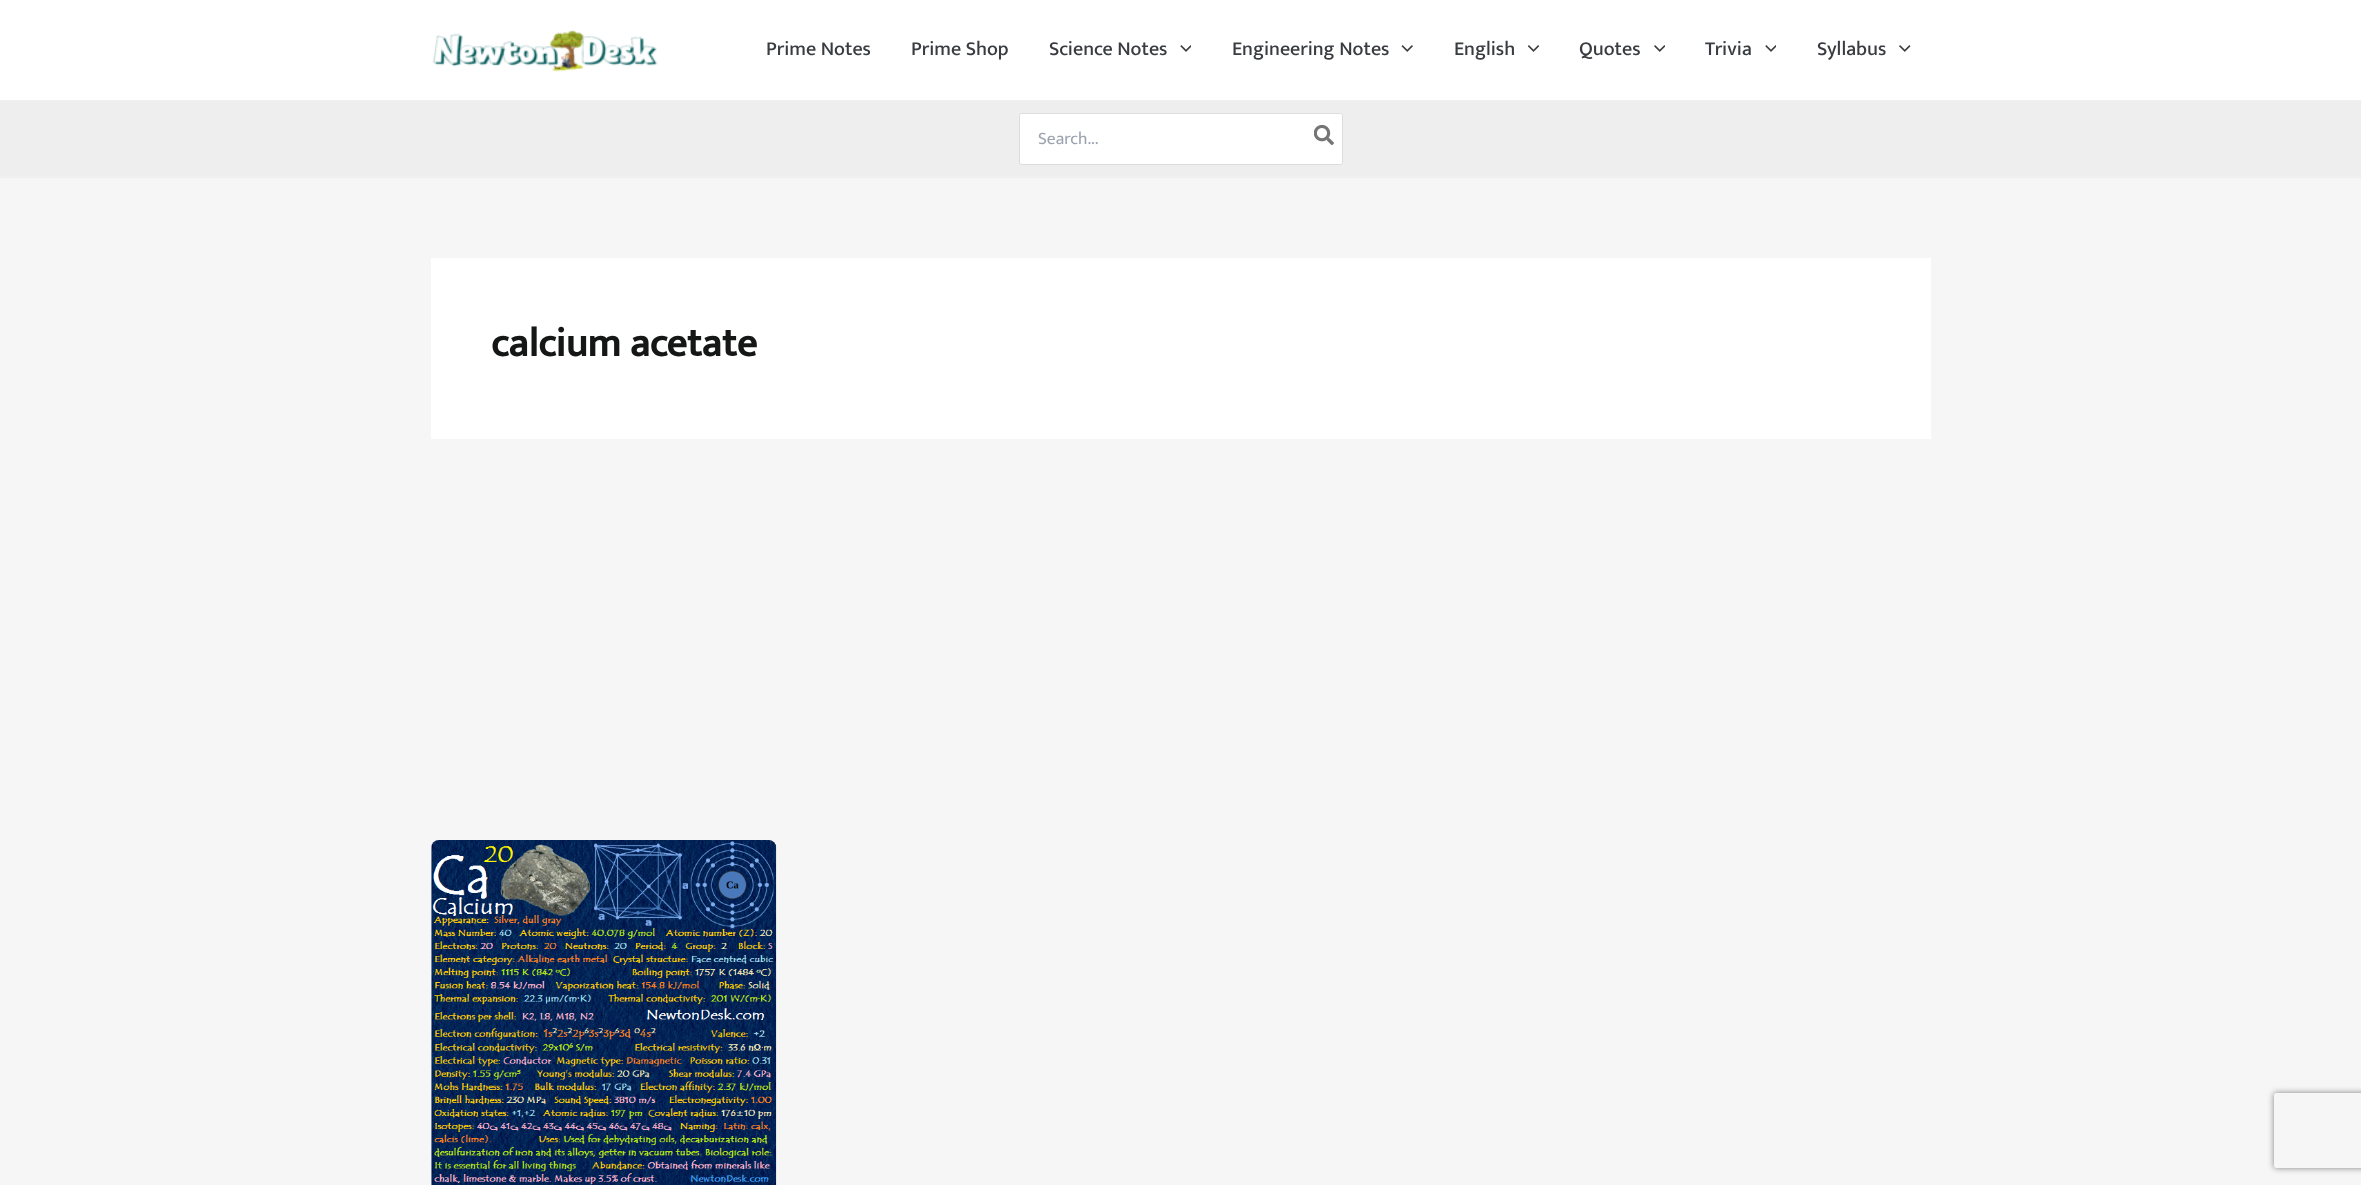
<svg xmlns="http://www.w3.org/2000/svg" width="2361" height="1185">
<style>
.a{font:500 20px Mukta;fill:#393c40}
.b{font:17.5px Mukta;fill:#9ca3af}
.c{font:bold 40px Mukta;fill:#151616}
</style>
<defs>
<clipPath id="clip1"><path d="M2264 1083h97v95h-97zm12.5 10h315c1.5 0 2.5 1 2.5 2.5v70c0 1.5-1 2.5-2.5 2.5h-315c-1.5 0-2.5-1-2.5-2.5v-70c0-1.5 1-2.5 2.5-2.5z" clip-rule="evenodd"/></clipPath>
</defs>
<rect width="100%" height="100%" fill="#f6f6f6"/>
<path fill="#fff" d="M0 0h2361v100H0z"/>
<path fill="#f1f0f0" d="M0 100h2361v1H0z"/>
<image href="1.png" x="432" y="30" width="226" height="42"/>
<image href="2.png" x="1180" y="45" width="11" height="7"/>
<image href="3.png" x="1401" y="45" width="12" height="7"/>
<image href="4.png" x="1528" y="45" width="12" height="7"/>
<image href="5.png" x="1654" y="45" width="11" height="7"/>
<image href="2.png" x="1765" y="45" width="11" height="7"/>
<image href="6.png" x="1899" y="45" width="12" height="7"/>
<path fill="#eee" d="M0 101h2361v77H0z"/>
<path fill="#f1f0f0" d="M0 176h2361v1H0z"/>
<rect fill="#fff" stroke="#ddd" x="1019.5" y="113.5" width="323" height="51" rx="2"/>
<image href="7.png" x="1314" y="124" width="20" height="21"/>
<path fill="#fff" d="M431 258h1500v181H431z"/>
<rect fill="#fff" x="431" y="840" width="345" height="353" rx="8"/>
<image href="8.png" x="431" y="840" width="346" height="345"/>
<g clip-path="url(#clip1)">
<rect fill="#808080" filter="blur(3px)" x="2274" y="1093" width="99" height="75" rx="2.5"/>
</g>
<text class="a" x="766" y="55">Prime Notes</text>
<text class="a" x="911" y="55">Prime Shop</text>
<text class="a" x="1049" y="55">Science Notes</text>
<text class="a" x="1232" y="55">Engineering Notes</text>
<text class="a" x="1454" y="55">English</text>
<text class="a" x="1579" y="55">Quotes</text>
<text class="a" x="1705" y="55">Trivia</text>
<text class="a" x="1817" y="55">Syllabus</text>
<text class="b" x="1038" y="144">Search...</text>
<text class="c" x="491" y="356">calcium acetate</text>
</svg>
